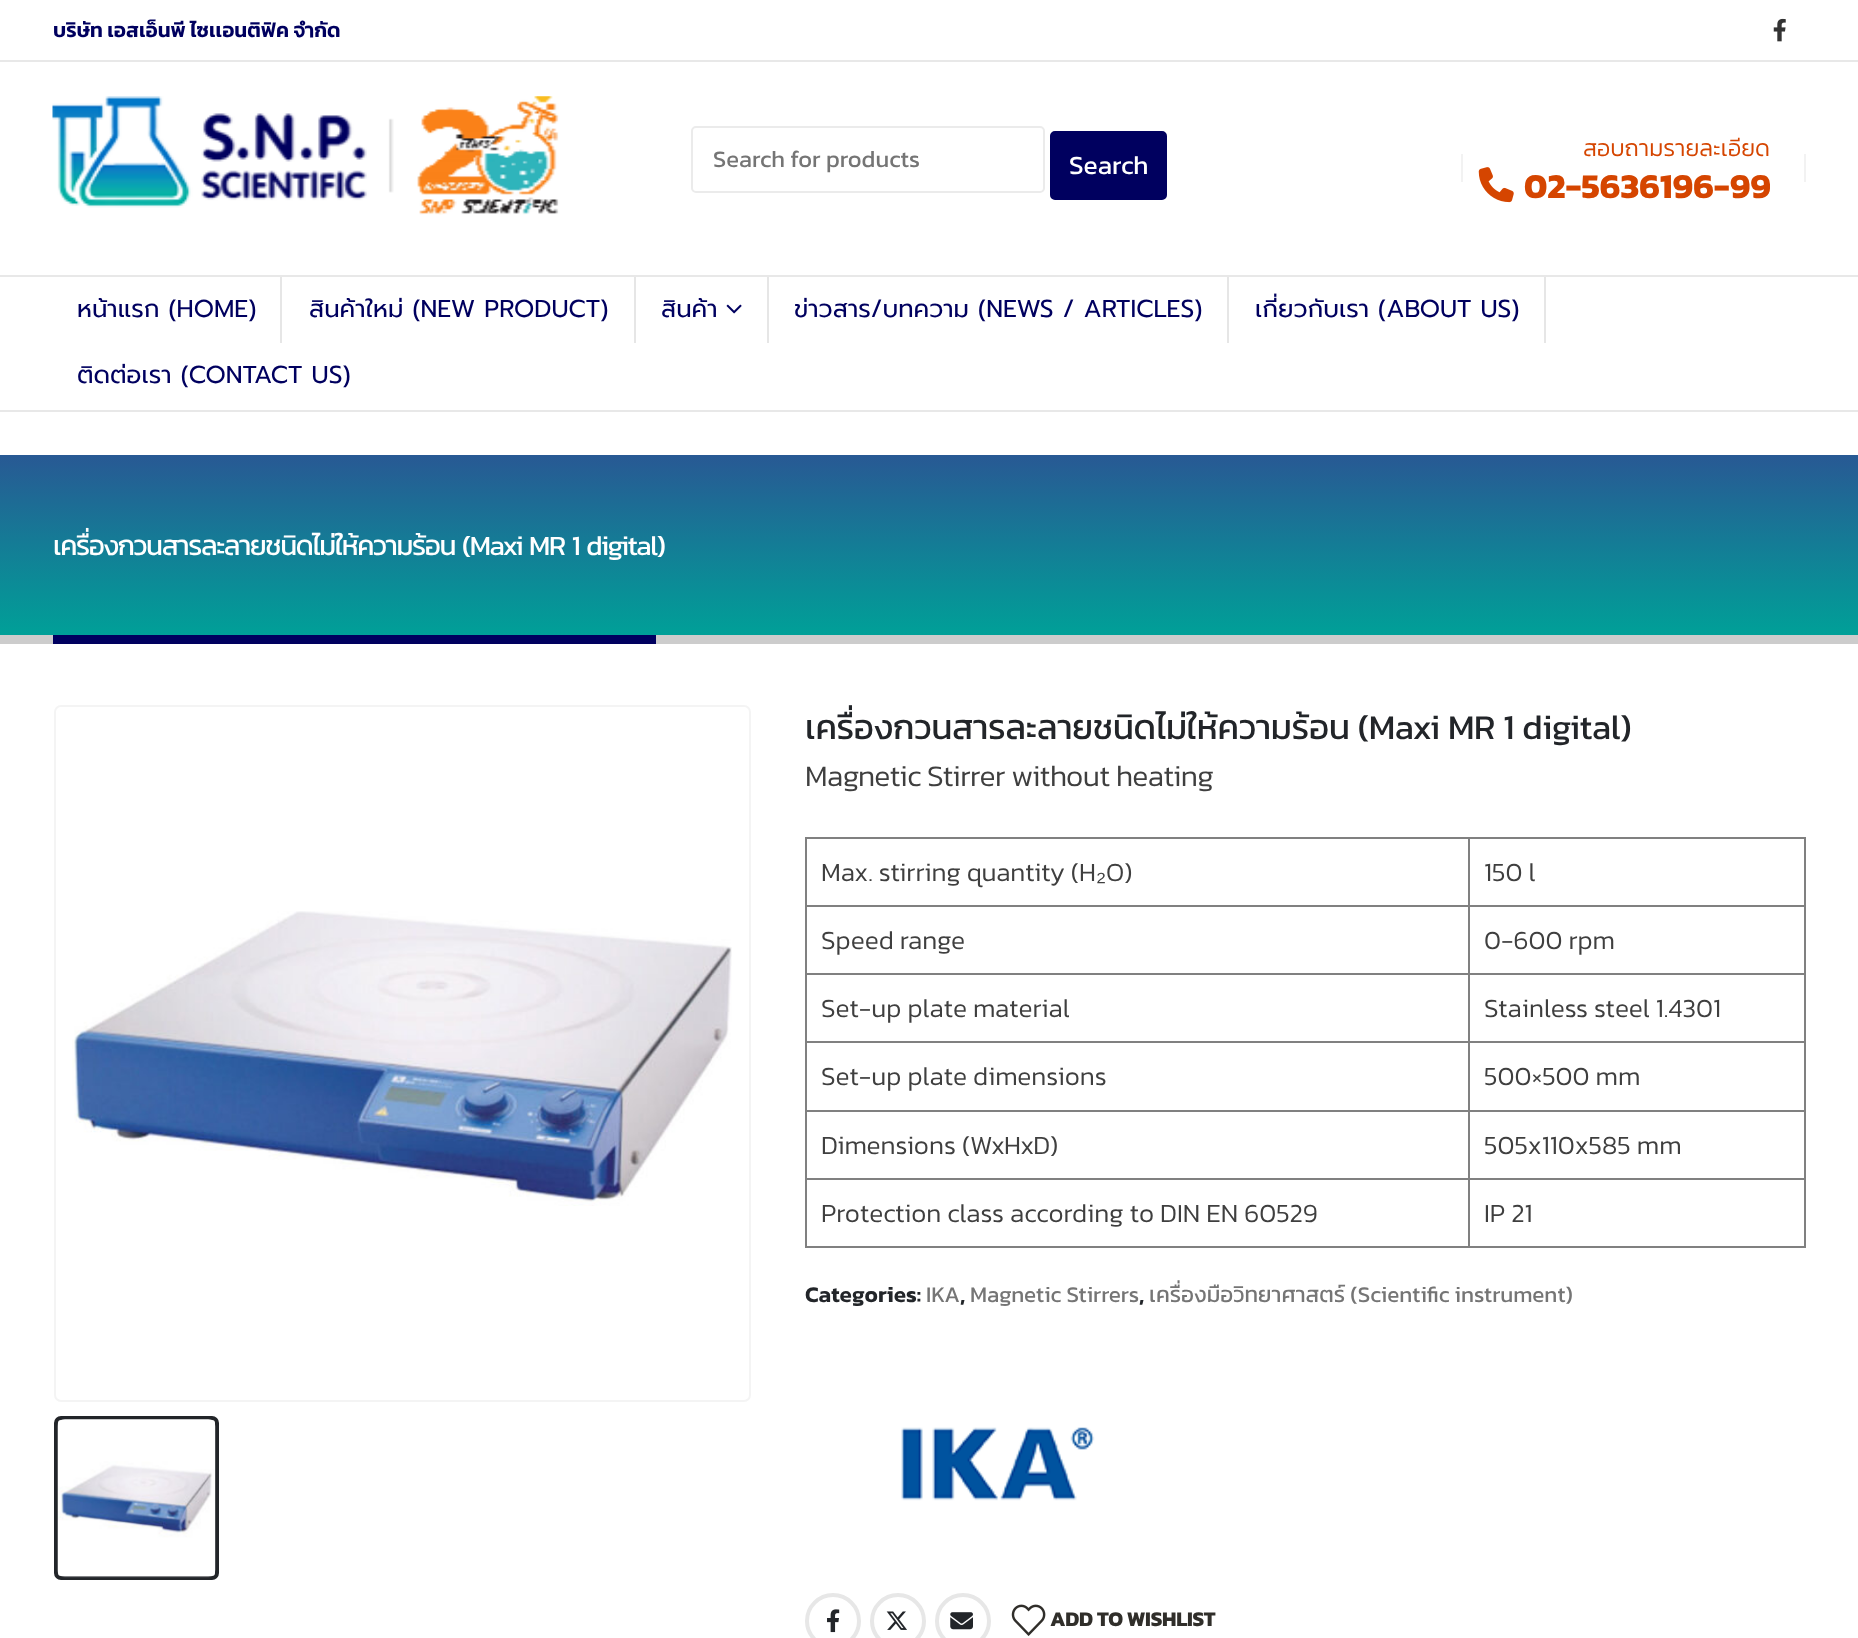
<svg xmlns="http://www.w3.org/2000/svg" width="1858" height="1638">
<style>
.a{font:600 20.6px Kanit;fill:#00005f}
.b{font:23.75px Kanit;fill:#757575}
.c{font:26.25px Kanit;fill:#fff}
.d{font:300 23.5px Kanit;fill:#d54500}
.e{font:bold 35px Kanit;fill:#d54500}
.f{font:24.5px Prompt;fill:#00005f}
.g{font:28px Kanit;letter-spacing:-1.4px;fill:#fff}
.h{font:35px Kanit;letter-spacing:-0.35px;fill:#222529}
.i{font:300 30px Kanit;letter-spacing:-0.45px;fill:#3f3f3f}
.j{font:300 26.25px Kanit;fill:#3f3f3f}
.k{font:26.25px Liberation Sans;fill:#3f3f3f}
.l{font:600 22.5px Kanit;fill:#222529}
.m{font:22.5px Kanit;fill:#757575}
.n{font:bold 21px Kanit;letter-spacing:-0.3px;fill:#302e2a}
</style>
<defs>
<linearGradient id="g1" gradientUnits="userSpaceOnUse" x1="929" y1="455" x2="929" y2="635"><stop offset="0" stop-color="#285994"/><stop offset="1" stop-color="#00a098"/></linearGradient>
</defs>
<rect width="100%" height="100%" fill="#fff"/>
<path fill="#e8e8e8" d="M0 60h1858v2H0z"/>
<image href="1.png" x="1773" y="18" width="13" height="24"/>
<path fill="#e8e8e8" d="M0 275h1858v2H0z"/>
<image href="2.png" x="52" y="96" width="508" height="119"/>
<rect fill="none" stroke="#ebebeb" stroke-width="2" x="692" y="127" width="352" height="65" rx="4"/>
<rect fill="#00005f" stroke="#00005f" stroke-width="2" x="1051" y="132" width="115" height="67" rx="4"/>
<path fill="#f2f2f2" d="M1461 154h2v28H1461z"/>
<image href="3.png" x="1478" y="167" width="36" height="36"/>
<path fill="#f2f2f2" d="M1804 154h2v28H1804z"/>
<path fill="#e8e8e8" d="M0 410h1858v2H0z"/>
<path fill="#e6e6e6" d="M280 277h2v66H280z"/>
<path fill="#e6e6e6" d="M634 277h2v66H634z"/>
<path fill="#e6e6e6" d="M767 277h2v66H767z"/>
<image href="4.png" x="726" y="304" width="16" height="10"/>
<path fill="#e6e6e6" d="M1227 277h2v66H1227z"/>
<path fill="#e6e6e6" d="M1544 277h2v66H1544z"/>
<path fill="url(#g1)" d="M0 455h1858v180H0z"/>
<path fill="#ccc" d="M0 635h1858v9H0z"/>
<path fill="#00005f" d="M53 635h603v9H53z"/>
<rect fill="none" stroke="#f4f4f4" stroke-width="2" x="55" y="706" width="695" height="695" rx="6"/>
<image href="5.png" x="72" y="911" width="660" height="295"/>
<rect fill="none" stroke="#222529" stroke-width="4" x="56" y="1418" width="161" height="160" rx="5"/>
<image href="6.png" x="57" y="1419" width="159" height="159"/>
<path fill="#808080" d="M805 837h1001v2H805z"/>
<path fill="#808080" d="M1804 837h2v411H1804z"/>
<path fill="#808080" d="M805 1246h1001v2H805z"/>
<path fill="#808080" d="M805 837h2v411H805z"/>
<path fill="#808080" d="M1468 905h338v2H1468z"/>
<path fill="#808080" d="M1468 973h338v2H1468z"/>
<path fill="#808080" d="M1468 1041h338v2H1468z"/>
<path fill="#808080" d="M1468 1110h338v2H1468z"/>
<path fill="#808080" d="M1468 1178h338v2H1468z"/>
<path fill="#808080" d="M1468 1178h2v70H1468z"/>
<path fill="#808080" d="M805 1178h665v2H805z"/>
<path fill="#808080" d="M1468 1110h2v70H1468z"/>
<path fill="#808080" d="M805 1110h665v2H805z"/>
<path fill="#808080" d="M1468 1041h2v70H1468z"/>
<path fill="#808080" d="M805 1041h665v2H805z"/>
<path fill="#808080" d="M1468 973h2v70H1468z"/>
<path fill="#808080" d="M805 973h665v2H805z"/>
<path fill="#808080" d="M1468 905h2v70H1468z"/>
<path fill="#808080" d="M805 905h665v2H805z"/>
<path fill="#808080" d="M1468 837h2v70H1468z"/>
<image href="7.png" x="901" y="1427" width="194" height="74"/>
<circle fill="none" stroke="#e7e7e7" stroke-width="4" cx="833" cy="1621" r="26"/>
<image href="8.png" x="827" y="1609" width="13" height="24"/>
<circle fill="none" stroke="#e7e7e7" stroke-width="4" cx="898" cy="1621" r="26"/>
<image href="9.png" x="886" y="1611" width="21" height="19"/>
<circle fill="none" stroke="#e7e7e7" stroke-width="4" cx="963" cy="1621" r="26"/>
<image href="10.png" x="950" y="1612" width="23" height="18"/>
<image href="11.png" x="1011" y="1604" width="35" height="32"/>
<text class="a" x="53" y="37">บริษัท เอสเอ็นพี ไซเเอนติฟิค จำกัด</text>
<text class="b" x="713" y="167">Search for products</text>
<text class="c" x="1069" y="174">Search</text>
<text class="d" x="1583" y="156">สอบถามรายละเอียด</text>
<text class="e" x="1524" y="198">02-5636196-99</text>
<text class="f" x="77" y="317">หน้าแรก (HOME)</text>
<text class="f" x="309" y="317">สินค้าใหม่ (NEW PRODUCT)</text>
<text class="f" x="661" y="317">สินค้า</text>
<text class="f" x="794" y="317">ข่าวสาร/บทความ (NEWS / ARTICLES)</text>
<text class="f" x="1255" y="317">เกี่ยวกับเรา (ABOUT US)</text>
<text class="f" x="77" y="383">ติดต่อเรา (CONTACT US)</text>
<text class="g" x="53" y="555" word-spacing="2">เครื่องกวนสารละลายชนิดไม่ให้ความร้อน (Maxi MR 1 digital)</text>
<text class="h" x="805" y="739" word-spacing="0.5">เครื่องกวนสารละลายชนิดไม่ให้ความร้อน (Maxi MR 1 digital)</text>
<text class="i" x="805" y="786">Magnetic Stirrer without heating</text>
<text class="j" x="821" y="881">Max. stirring quantity (H</text>
<text class="k" x="1096" y="881">₂</text>
<text class="j" x="1106" y="881">O)</text>
<text class="j" x="1484" y="881">150 l</text>
<text class="j" x="821" y="949">Speed range</text>
<text class="j" x="1484" y="949">0-600 rpm</text>
<text class="j" x="821" y="1017">Set-up plate material</text>
<text class="j" x="1484" y="1017">Stainless steel 1.4301</text>
<text class="j" x="821" y="1085">Set-up plate dimensions</text>
<text class="j" x="1484" y="1085">500×500 mm</text>
<text class="j" x="821" y="1154">Dimensions (WxHxD)</text>
<text class="j" x="1484" y="1154">505x110x585 mm</text>
<text class="j" x="821" y="1222">Protection class according to DIN EN 60529</text>
<text class="j" x="1484" y="1222">IP 21</text>
<text class="l" x="805" y="1302">Categories:</text>
<text class="m" x="926" y="1302">IKA</text>
<text class="l" x="960" y="1302">,</text>
<text class="m" x="970" y="1302">Magnetic Stirrers</text>
<text class="l" x="1139" y="1302">,</text>
<text class="m" x="1149" y="1302">เครื่องมือวิทยาศาสตร์ (Scientific instrument)</text>
<text class="n" x="1050" y="1626">ADD TO WISHLIST</text>
</svg>
